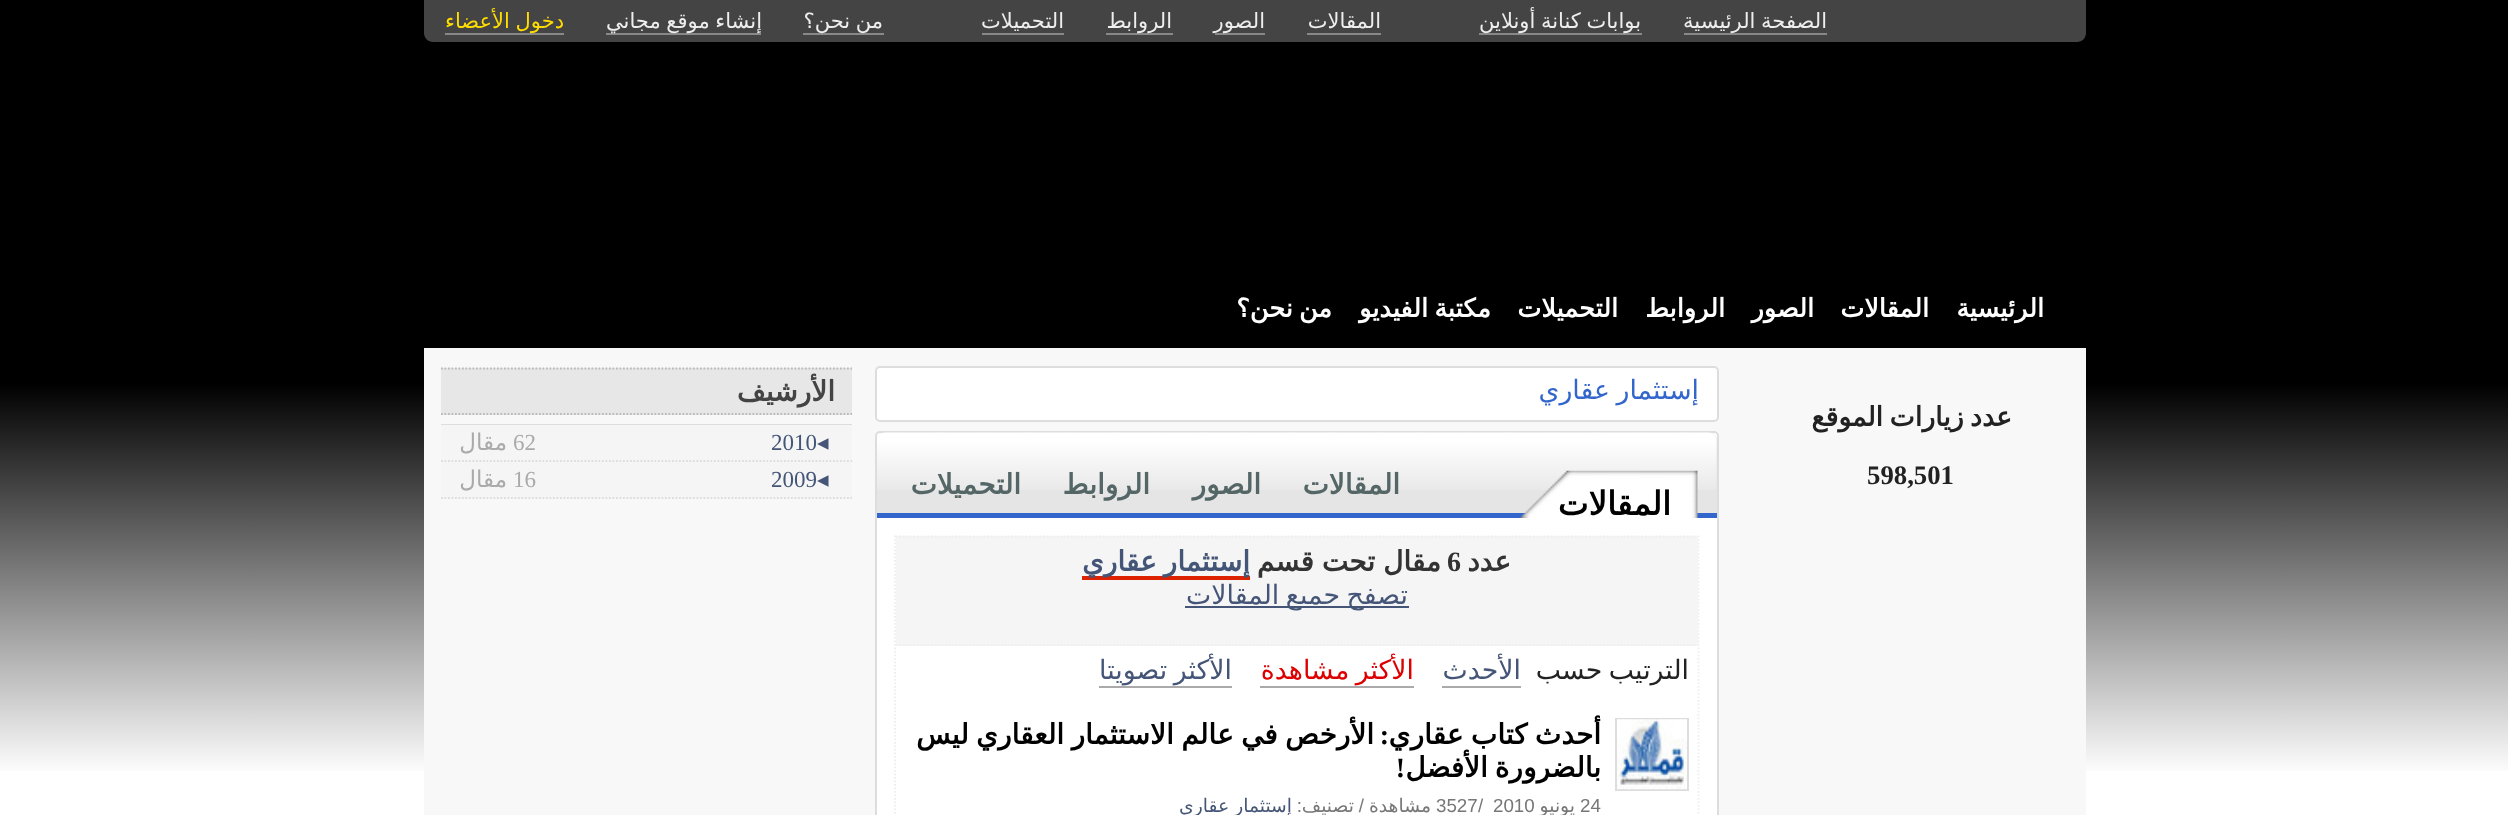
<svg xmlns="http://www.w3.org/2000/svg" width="2508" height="815">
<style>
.a{font:21px DejaVu Sans;direction:rtl;fill:#eee}
.b{font:21px DejaVu Sans;direction:rtl;fill:#fd0}
.c{font:bold 25.5px DejaVu Sans;direction:rtl;fill:#fff}
.d{font:bold 26.75px DejaVu Sans;direction:rtl;fill:#222}
.e{font:bold 26.75px Liberation Serif;fill:#222}
.f{font:26.75px DejaVu Sans;direction:rtl;fill:#36c}
.g{font:bold 32.5px DejaVu Sans;direction:rtl;fill:#000}
.h{font:bold 28px DejaVu Sans;direction:rtl;fill:#566}
.i{font:bold 28px DejaVu Sans;direction:rtl;fill:#333}
.j{font:bold 28px Liberation Serif;fill:#333}
.k{font:bold 28px DejaVu Sans;direction:rtl;fill:#457}
.l{font:26.75px DejaVu Sans;direction:rtl;fill:#457}
.m{font:26.75px DejaVu Sans;direction:rtl;fill:#222}
.n{font:26.75px DejaVu Sans;direction:rtl;fill:#d00}
.o{font:bold 28px DejaVu Sans;direction:rtl;fill:#000}
.p{font:bold 28px Liberation Serif;direction:rtl;fill:#000}
.q{font:18.75px Liberation Sans;fill:#777}
.r{font:18.75px DejaVu Sans;direction:rtl;fill:#777}
.s{font:18.75px Liberation Sans;direction:rtl;fill:#777}
.t{font:18.75px DejaVu Sans;direction:rtl;fill:#457}
.u{font:bold 28px DejaVu Sans;direction:rtl;fill:#444}
.v{font:23px DejaVu Sans;fill:#457}
.w{font:23px Liberation Serif;fill:#457}
.x{font:23px Liberation Serif;fill:#aaa}
.y{font:23px DejaVu Sans;direction:rtl;fill:#aaa}
</style>
<defs>
<linearGradient id="g1" gradientUnits="userSpaceOnUse" x1="0" y1="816" x2="0" y2="0"><stop offset="0.05" stop-color="#fff"/><stop offset="0.53" stop-color="#000"/></linearGradient>
</defs>
<rect width="100%" height="100%" fill="#fff"/>
<path fill="url(#g1)" d="M0 0h2508v771H0z"/>
<path fill="#444" d="M424 0h1662v33c0 5-4 9-9 9h-1644c-5 0-9-4-9-9z"/>
<path fill="#888" d="M1684 33h143v2H1684z"/>
<path fill="#888" d="M1479 33h163v2H1479z"/>
<path fill="#888" d="M1307 33h74v2H1307z"/>
<path fill="#888" d="M1215 33h50v2H1215z"/>
<path fill="#888" d="M1106 33h67v2H1106z"/>
<path fill="#888" d="M982 33h82v2H982z"/>
<path fill="#888" d="M803 33h81v2H803z"/>
<path fill="#888" d="M606 33h155v2H606z"/>
<path fill="#888" d="M445 33h119v2H445z"/>
<path fill="#f8f8f8" d="M424 348h1662v467H424z"/>
<rect fill="#fff" stroke="#ddd" stroke-width="2" x="876" y="367" width="842" height="54" rx="4"/>
<rect fill="#fff" stroke="#ddd" stroke-width="2" x="876" y="432" width="842" height="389" rx="4"/>
<path fill="#e5e5e5" d="M886 432h822c5 0 9 4 9 9v77h-840v-77c0-5 4-9 9-9z"/>
<image href="1.png" x="877" y="432" width="840" height="58"/>
<path fill="#36c" d="M877 513h840v5H877z"/>
<image href="2.png" x="1520" y="470" width="178" height="48"/>
<path fill="none" stroke="#eee" stroke-width="1.8" stroke-dasharray="1.75 1.75" d="M1698.5 535.5v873.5"/>
<path fill="none" stroke="#eee" stroke-width="1.8" stroke-dasharray="1.75 1.75" d="M895 535.5v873.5"/>
<path fill="#f5f5f5" d="M896 536h802v110H896z"/>
<path fill="none" stroke="#eee" stroke-width="1.8" stroke-dasharray="1.75 1.75" d="M896 536.5h801.5"/>
<path fill="none" stroke="#eee" stroke-width="1.8" stroke-dasharray="1.75 1.75" d="M896 645h801.5"/>
<path fill="#d20" d="M1082 576h168v4H1082z"/>
<path fill="#457" d="M1185 606h224v2H1185z"/>
<path fill="#aaa" d="M1442 686h79v2H1442z"/>
<path fill="#aaa" d="M1260 686h154v2H1260z"/>
<path fill="#aaa" d="M1099 686h133v2H1099z"/>
<path fill="none" stroke="#ddd" stroke-width="2" d="M1616 719h72v71H1616z"/>
<image href="3.png" x="1617" y="719" width="70" height="71"/>
<path fill="#e7e7e7" d="M441 368h411v47H441z"/>
<path fill="none" stroke="#bbb" stroke-width="1.8" stroke-dasharray="1.75 1.75" d="M441 368.5h411"/>
<path fill="none" stroke="#bbb" stroke-width="1.8" stroke-dasharray="1.75 1.75" d="M441 414h411"/>
<path fill="#ddd" d="M441 424h411v1H441z"/>
<path fill="#f5f5f5" d="M441 425h411v74H441z"/>
<path fill="none" stroke="#ddd" stroke-width="1.8" stroke-dasharray="1.75 1.75" d="M441 461h411"/>
<path fill="none" stroke="#ddd" stroke-width="1.8" stroke-dasharray="1.75 1.75" d="M441 498h411"/>
<text class="a" x="1827" y="28" word-spacing="-1">الصفحة الرئيسية</text>
<text class="a" x="1641" y="28" word-spacing="-1">بوابات كنانة أونلاين</text>
<text class="a" x="1381" y="28">المقالات</text>
<text class="a" x="1265" y="28">الصور</text>
<text class="a" x="1172" y="28">الروابط</text>
<text class="a" x="1064" y="28">التحميلات</text>
<text class="a" x="883" y="28" word-spacing="-1">من نحن؟</text>
<text class="a" x="762" y="28" word-spacing="-1">إنشاء موقع مجاني</text>
<text class="b" x="564" y="28" word-spacing="-1">دخول الأعضاء</text>
<text class="c" x="2044" y="317">الرئيسية</text>
<text class="c" x="1929" y="317">المقالات</text>
<text class="c" x="1814" y="317">الصور</text>
<text class="c" x="1725" y="317">الروابط</text>
<text class="c" x="1618" y="317">التحميلات</text>
<text class="c" x="1491" y="317" word-spacing="-2">مكتبة الفيديو</text>
<text class="c" x="1332" y="317" word-spacing="-2">من نحن؟</text>
<text class="d" x="2012" y="426" word-spacing="-2">عدد زيارات الموقع</text>
<text class="e" x="1867" y="484">598,501</text>
<text class="f" x="1699" y="399" word-spacing="-2">إستثمار عقاري</text>
<text class="g" x="1671" y="515">المقالات</text>
<text class="h" x="1400" y="494">المقالات</text>
<text class="h" x="1261" y="494">الصور</text>
<text class="h" x="1150" y="494">الروابط</text>
<text class="h" x="1021" y="494">التحميلات</text>
<text class="i" x="1511" y="571">عدد</text>
<text class="j" x="1447" y="571">6</text>
<text class="i" x="1441" y="571" word-spacing="-1">مقال تحت قسم</text>
<text class="k" x="1250" y="571" word-spacing="-2">إستثمار عقاري</text>
<text class="l" x="1408" y="604" word-spacing="-2">تصفح جميع المقالات</text>
<text class="m" x="1689" y="679" word-spacing="-2">الترتيب حسب</text>
<text class="l" x="1521" y="679">الأحدث</text>
<text class="n" x="1414" y="679" word-spacing="-2">الأكثر مشاهدة</text>
<text class="l" x="1232" y="679" word-spacing="-2">الأكثر تصويتا</text>
<text class="o" x="1601" y="744" word-spacing="-1.5">أحدث كتاب عقاري</text>
<text class="p" x="1389" y="744">:</text>
<text class="o" x="1374" y="744" word-spacing="-1.5">الأرخص في عالم الاستثمار العقاري ليس</text>
<text class="o" x="1601" y="777" word-spacing="-2">بالضرورة الأفضل</text>
<text class="p" x="1405" y="777">!</text>
<text class="q" x="1580" y="812">24</text>
<text class="r" x="1575" y="812">يونيو</text>
<text class="q" x="1493" y="812">2010</text>
<text class="q" x="1478" y="812">/</text>
<text class="q" x="1436" y="812">3527</text>
<text class="r" x="1431" y="812">مشاهدة</text>
<text class="s" x="1364" y="812">/</text>
<text class="r" x="1354" y="812">تصنيف</text>
<text class="s" x="1302" y="812">:</text>
<text class="t" x="1292" y="812" word-spacing="-1">إستثمار عقاري</text>
<text class="u" x="835" y="401">الأرشيف</text>
<text class="v" x="817" y="450">◂</text>
<text class="w" x="771" y="450">2010</text>
<text class="x" x="513" y="450">62</text>
<text class="y" x="507" y="450">مقال</text>
<text class="v" x="817" y="487">◂</text>
<text class="w" x="771" y="487">2009</text>
<text class="x" x="513" y="487">16</text>
<text class="y" x="507" y="487">مقال</text>
</svg>
